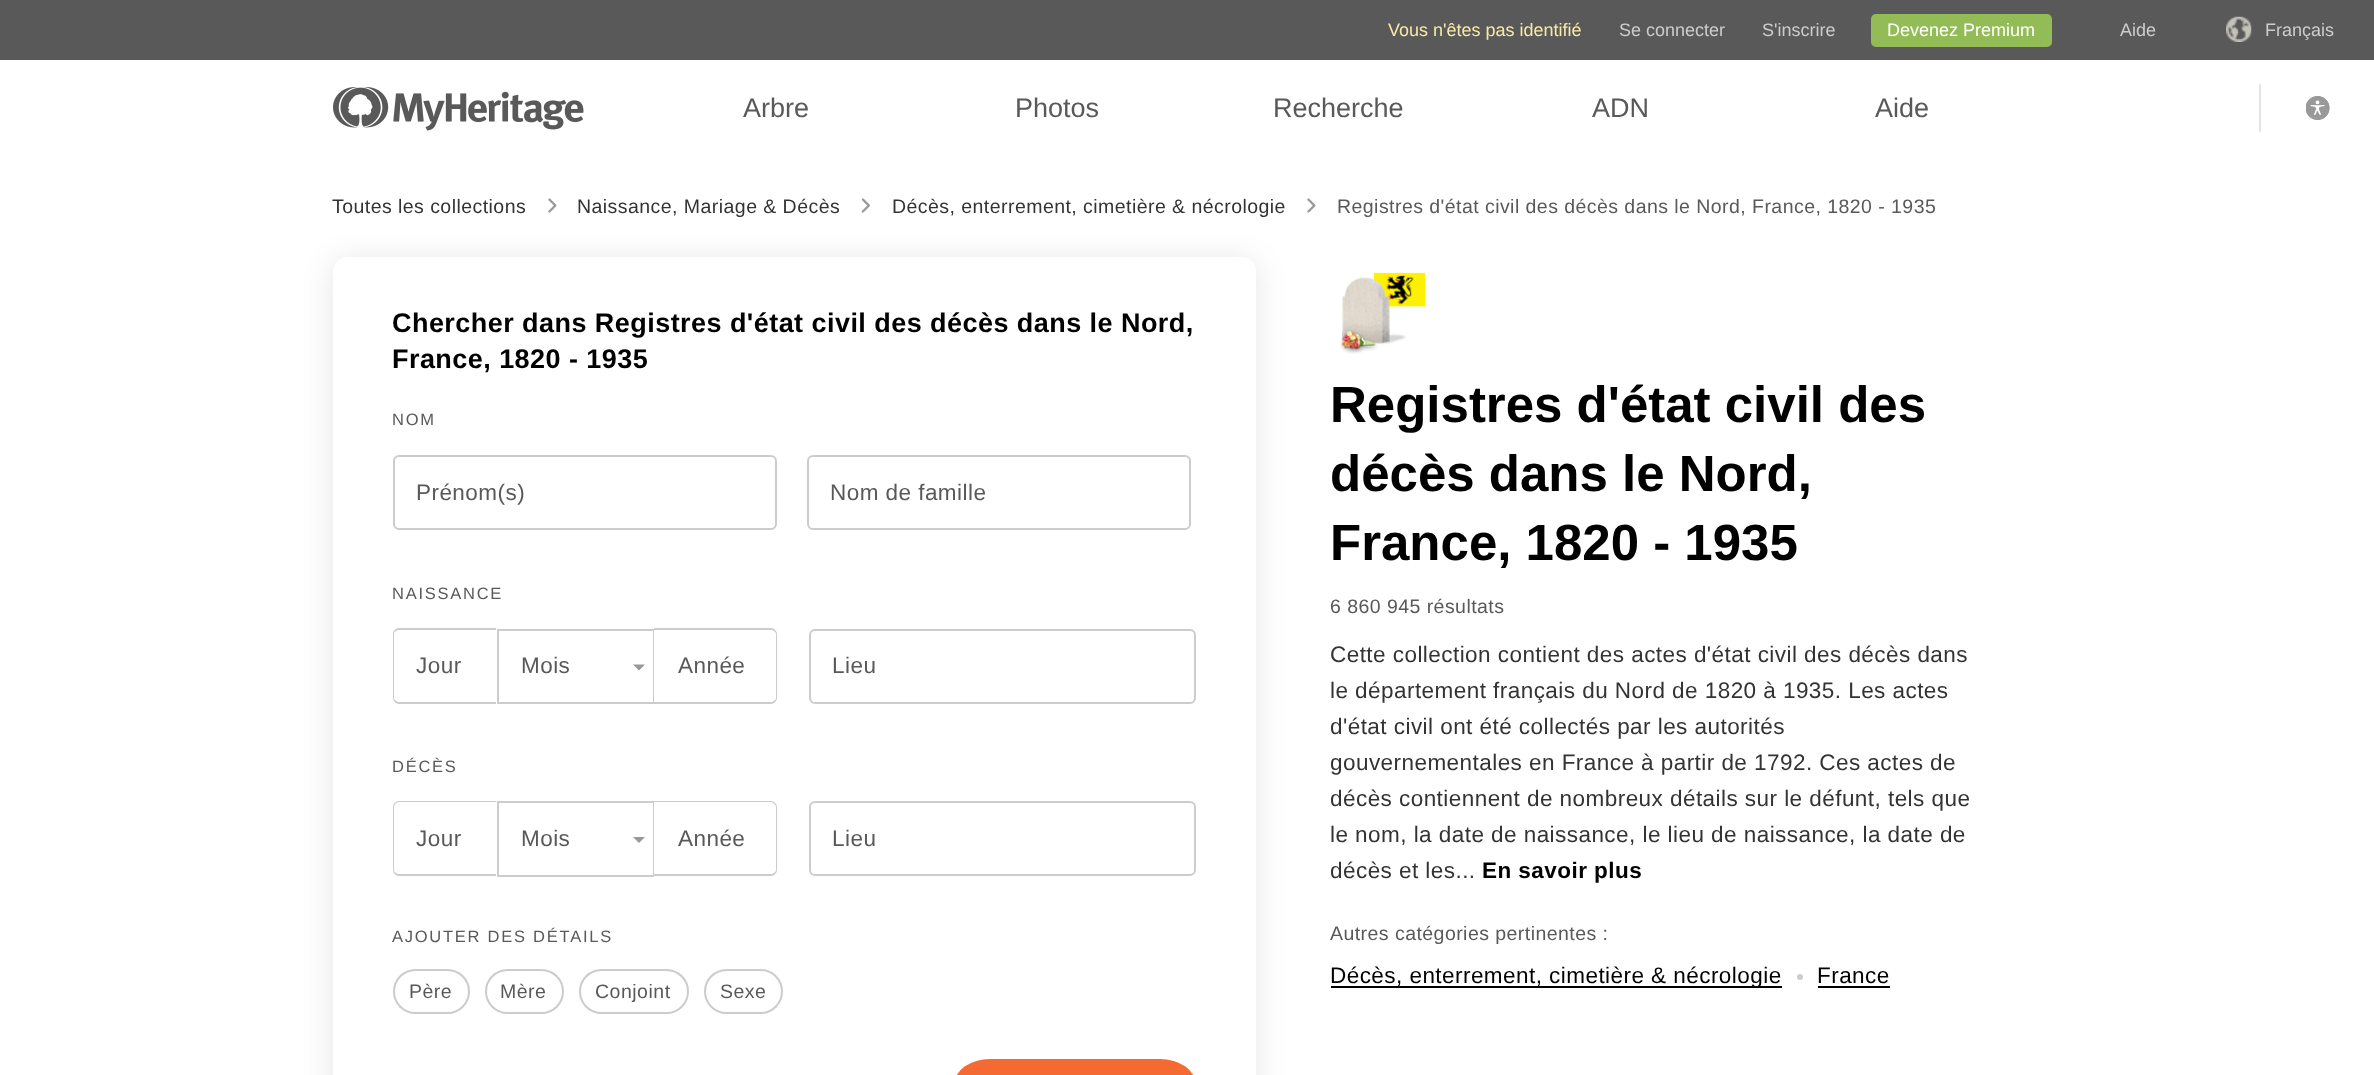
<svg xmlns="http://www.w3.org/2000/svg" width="2374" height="1075">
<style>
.a{font:18px Liberation Sans;fill:#f7e9a8}
.b{font:18px Liberation Sans;fill:#ccc}
.c{font:18px Liberation Sans;fill:#fff}
.d{font:27px Liberation Sans;fill:#595959}
.e{font:19.5px Liberation Sans;letter-spacing:0.45px;fill:#333}
.f{font:19.5px Liberation Sans;letter-spacing:0.45px;fill:#595959}
.g{font:bold 27px Liberation Sans;letter-spacing:0.45px;fill:#000}
.h{font:16.5px Liberation Sans;letter-spacing:1.75px;fill:#595959}
.i{font:22.5px Liberation Sans;letter-spacing:0.45px;fill:#595959}
.j{font:19.5px Liberation Sans;letter-spacing:0.5px;fill:#595959}
.k{font:bold 51px Liberation Sans;fill:#000}
.l{font:22.5px Liberation Sans;letter-spacing:0.45px;fill:#333}
.m{font:bold 22.5px Liberation Sans;letter-spacing:0.45px;fill:#000}
.n{font:22.5px Liberation Sans;letter-spacing:0.45px;fill:#000}
</style>
<defs>
<clipPath id="clip1"><path d="M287 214h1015v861h-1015zm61 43h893c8.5 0 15 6.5 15 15v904c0 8.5-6.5 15-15 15h-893c-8.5 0-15-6.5-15-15v-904c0-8.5 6.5-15 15-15z" clip-rule="evenodd"/></clipPath>
</defs>
<rect width="100%" height="100%" fill="#fff"/>
<path fill="#595959" d="M0 0h2374v60H0z"/>
<rect fill="#93bc56" stroke="#93bc56" stroke-width="2" x="1872" y="15" width="179" height="31" rx="4"/>
<image href="1.png" x="2226" y="16" width="26" height="26"/>
<image href="2.png" x="333" y="87" width="251" height="44"/>
<path fill="#e5e5e5" d="M2259 84h2v48H2259z"/>
<image href="3.png" x="2306" y="96" width="24" height="24"/>
<image href="4.png" x="2306" y="96" width="24" height="24"/>
<image href="5.png" x="548" y="198" width="9" height="15"/>
<image href="6.png" x="861" y="198" width="9" height="15"/>
<image href="5.png" x="1307" y="198" width="9" height="15"/>
<g clip-path="url(#clip1)">
<rect fill="#0000001a" filter="blur(15px)" x="333" y="260" width="923" height="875" rx="15"/>
</g>
<rect fill="none" stroke="#ccc" stroke-width="2" x="394" y="456" width="382" height="73" rx="5"/>
<rect fill="none" stroke="#ccc" stroke-width="2" x="808" y="456" width="382" height="73" rx="5"/>
<path fill="#ccc" fill-rule="evenodd" d="M399 628h97v76h-97c-3 0-6-3-6-6v-64c0-3 3-6 6-6zm0 2h97v72h-97c-2 0-5-2-5-4v-64c0-2 3-4 5-4z"/>
<path fill="#ccc" d="M497 629h157v2H497z"/>
<path fill="#ccc" d="M497 702h157v2H497z"/>
<path fill="#ccc" d="M497 630h2v72H497z"/>
<path fill="#999" d="M633 664.5h12l-6 6z"/>
<path fill="#ccc" d="M653 630h1v72H653z"/>
<path fill="#ccc" fill-rule="evenodd" d="M654 628h117c3 0 6 3 6 6v64c0 3-3 6-6 6h-117zm0 2h117c2 0 5 2 5 4v64c0 2-3 4-5 4h-117z"/>
<rect fill="none" stroke="#ccc" stroke-width="2" x="810" y="630" width="385" height="73" rx="5"/>
<path fill="#ccc" fill-rule="evenodd" d="M399 801h97v75h-97c-3 0-6-3-6-6v-63c0-3 3-6 6-6zm0 1h97v72h-97c-2 0-5-2-5-4v-63c0-2 3-5 5-5z"/>
<path fill="#ccc" d="M497 801h157v2H497z"/>
<path fill="#ccc" d="M497 875h157v2H497z"/>
<path fill="#ccc" d="M497 803h2v72H497z"/>
<path fill="#999" d="M633 837h12l-6 6z"/>
<path fill="#ccc" d="M653 803h1v72H653z"/>
<path fill="#ccc" fill-rule="evenodd" d="M654 801h117c3 0 6 3 6 6v63c0 3-3 6-6 6h-117zm0 1h117c2 0 5 3 5 5v63c0 2-3 4-5 4h-117z"/>
<rect fill="none" stroke="#ccc" stroke-width="2" x="810" y="802" width="385" height="73" rx="5"/>
<rect fill="none" stroke="#ccc" stroke-width="2" x="394" y="970" width="75" height="43" rx="21.5"/>
<rect fill="none" stroke="#ccc" stroke-width="2" x="486" y="970" width="77" height="43" rx="21.5"/>
<rect fill="none" stroke="#ccc" stroke-width="2" x="580" y="970" width="108" height="43" rx="21.5"/>
<rect fill="none" stroke="#ccc" stroke-width="2" x="705" y="970" width="77" height="43" rx="21.5"/>
<rect fill="#f56932" x="954" y="1059" width="242" height="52" rx="36"/>
<image href="7.png" x="1340" y="272" width="85" height="82"/>
<path fill="#000" d="M1331 986h451v2H1331z"/>
<circle fill="#ccc" cx="1800" cy="977" r="3"/>
<path fill="#000" d="M1818 986h72v2H1818z"/>
<text class="a" x="1388" y="36">Vous n'êtes pas identifié</text>
<text class="b" x="1619" y="36">Se connecter</text>
<text class="b" x="1762" y="36">S'inscrire</text>
<text class="c" x="1887" y="36">Devenez Premium</text>
<text class="b" x="2120" y="36">Aide</text>
<text class="b" x="2265" y="36">Français</text>
<text class="d" x="743" y="117">Arbre</text>
<text class="d" x="1015" y="117">Photos</text>
<text class="d" x="1273" y="117">Recherche</text>
<text class="d" x="1592" y="117">ADN</text>
<text class="d" x="1875" y="117">Aide</text>
<text class="e" x="332" y="213">Toutes les collections</text>
<text class="e" x="577" y="213">Naissance, Mariage &amp; Décès</text>
<text class="e" x="892" y="213">Décès, enterrement, cimetière &amp; nécrologie</text>
<text class="f" x="1337" y="213">Registres d'état civil des décès dans le Nord, France, 1820 - 1935</text>
<text class="g" x="392" y="332">Chercher dans Registres d'état civil des décès dans le Nord,</text>
<text class="g" x="392" y="368">France, 1820 - 1935</text>
<text class="h" x="392" y="425">NOM</text>
<text class="i" x="416" y="500">Prénom(s)</text>
<text class="i" x="830" y="500">Nom de famille</text>
<text class="h" x="392" y="599">NAISSANCE</text>
<text class="i" x="416" y="673">Jour</text>
<text class="i" x="521" y="673">Mois</text>
<text class="i" x="678" y="673">Année</text>
<text class="i" x="832" y="673">Lieu</text>
<text class="h" x="392" y="772">DÉCÈS</text>
<text class="i" x="416" y="846">Jour</text>
<text class="i" x="521" y="846">Mois</text>
<text class="i" x="678" y="846">Année</text>
<text class="i" x="832" y="846">Lieu</text>
<text class="h" x="392" y="942">AJOUTER DES DÉTAILS</text>
<text class="j" x="409" y="998">Père</text>
<text class="j" x="500" y="998">Mère</text>
<text class="j" x="595" y="998">Conjoint</text>
<text class="j" x="720" y="998">Sexe</text>
<text class="k" x="1330" y="422">Registres d'état civil des</text>
<text class="k" x="1330" y="491">décès dans le Nord,</text>
<text class="k" x="1330" y="560">France, 1820 - 1935</text>
<text class="f" x="1330" y="613">6 860 945 résultats</text>
<text class="l" x="1330" y="662">Cette collection contient des actes d'état civil des décès dans</text>
<text class="l" x="1330" y="698">le département français du Nord de 1820 à 1935. Les actes</text>
<text class="l" x="1330" y="734">d'état civil ont été collectés par les autorités</text>
<text class="l" x="1330" y="770">gouvernementales en France à partir de 1792. Ces actes de</text>
<text class="l" x="1330" y="806">décès contiennent de nombreux détails sur le défunt, tels que</text>
<text class="l" x="1330" y="842">le nom, la date de naissance, le lieu de naissance, la date de</text>
<text class="l" x="1330" y="878">décès et les...</text>
<text class="m" x="1482" y="878">En savoir plus</text>
<text class="f" x="1330" y="940">Autres catégories pertinentes :</text>
<text class="n" x="1330" y="983">Décès, enterrement, cimetière &amp; nécrologie</text>
<text class="n" x="1817" y="983">France</text>
</svg>
